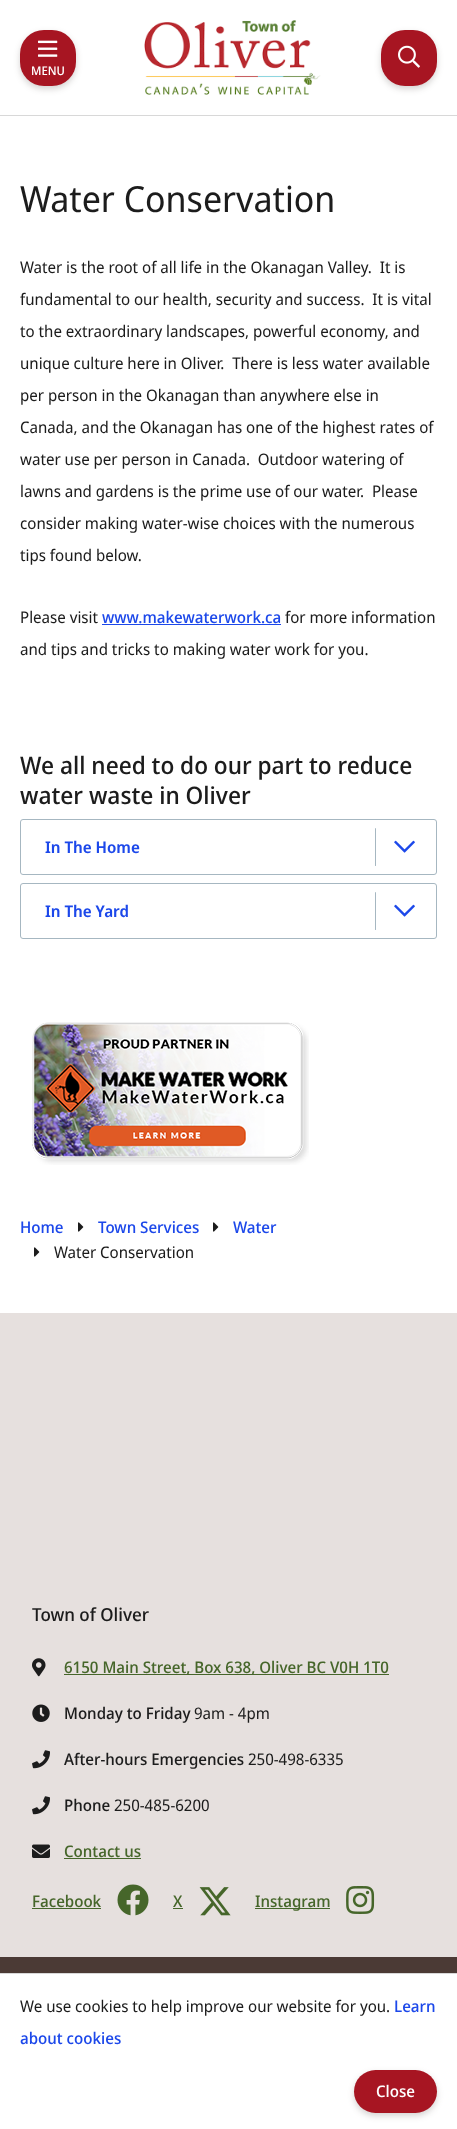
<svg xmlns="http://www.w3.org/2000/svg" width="457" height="2129">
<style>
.a{font:500 12px Noto Sans Display;fill:#fff}
.b{font:36px Noto Sans Display;fill:#1c1c1c}
.c{font:16px Noto Sans Display;fill:#1c1c1c}
.d{font:500 16px Noto Sans Display;fill:#1c48ea}
.e{font:500 24px Noto Sans Display;fill:#1c1c1c}
.f{font:600 16px Noto Sans Display;fill:#1c48ea}
.g{font:500 18px Noto Sans Display;fill:#1c1c1c}
.h{font:500 16px Noto Sans Display;fill:#46662a}
.i{font:500 16px Noto Sans Display;fill:#1c1c1c}
.j{font:500 16px Noto Sans Display;fill:#fff}
</style>
<rect width="100%" height="100%" fill="#fff"/>
<path fill="#d8d8d8" d="M0 115h457v1H0z"/>
<rect fill="#2e231f33" filter="blur(3px)" x="20" y="33" width="56" height="56" rx="24"/>
<rect fill="#a71522" x="20" y="30" width="56" height="56" rx="24"/>
<image href="1.png" x="38" y="40" width="20" height="17"/>
<image href="2.png" x="144" y="20" width="177" height="75"/>
<rect fill="#2e231f33" filter="blur(3px)" x="381" y="33" width="56" height="56" rx="24"/>
<rect fill="#a71522" x="381" y="30" width="56" height="56" rx="24"/>
<image href="3.png" x="398" y="45" width="22" height="23"/>
<path fill="#1c48ea" d="M102 624h179v1H102z"/>
<rect fill="none" stroke="#a6b7c1" x="20.5" y="819.5" width="416" height="55" rx="2.5"/>
<rect fill="#a6b7c1" x="375" y="828" width="1" height="38" rx="0.5"/>
<image href="4.png" x="394" y="840" width="21" height="13"/>
<rect fill="none" stroke="#a6b7c1" x="20.5" y="883.5" width="416" height="55" rx="2.5"/>
<rect fill="#a6b7c1" x="375" y="892" width="1" height="38" rx="0.5"/>
<image href="4.png" x="394" y="904" width="21" height="13"/>
<image href="5.png" x="32" y="1022" width="277" height="143"/>
<image href="6.png" x="78" y="1222" width="6" height="10"/>
<image href="6.png" x="213" y="1222" width="6" height="10"/>
<image href="6.png" x="34" y="1247" width="6" height="10"/>
<path fill="#4b3a35" d="M0 1957h457v16H0z"/>
<path fill="#e6e0de" d="M0 1313h457v644H0z"/>
<image href="7.png" x="32" y="1658" width="14" height="19"/>
<path fill="#46662a" d="M64 1674h325v1H64z"/>
<image href="8.png" x="32" y="1704" width="18" height="18"/>
<image href="9.png" x="32" y="1750" width="18" height="19"/>
<image href="9.png" x="32" y="1796" width="18" height="19"/>
<image href="10.png" x="32" y="1844" width="18" height="14"/>
<path fill="#46662a" d="M64 1858h77v1H64z"/>
<path fill="#46662a" d="M32 1908h69v1H32z"/>
<image href="11.png" x="117" y="1884" width="32" height="32"/>
<path fill="#46662a" d="M173 1908h10v1H173z"/>
<image href="12.png" x="199" y="1887" width="32" height="29"/>
<path fill="#46662a" d="M255 1908h75v1H255z"/>
<image href="13.png" x="346" y="1886" width="29" height="28"/>
<path fill="#d8d8d8" d="M0 1973h457v1H0z"/>
<rect fill="#2e231f33" filter="blur(3px)" x="354" y="2073" width="83" height="43" rx="21.5"/>
<rect fill="#a71522" x="354" y="2070" width="83" height="43" rx="21.5"/>
<text class="a" x="31" y="75">MENU</text>
<text class="b" x="20" y="212">Water Conservation</text>
<text class="c" xml:space="preserve" x="20" y="273">Water is the root of all life in the Okanagan Valley.  It is</text>
<text class="c" xml:space="preserve" x="20" y="305">fundamental to our health, security and success.  It is vital</text>
<text class="c" x="20" y="337">to the extraordinary landscapes, powerful economy, and</text>
<text class="c" xml:space="preserve" x="20" y="369">unique culture here in Oliver.  There is less water available</text>
<text class="c" x="20" y="401">per person in the Okanagan than anywhere else in</text>
<text class="c" x="20" y="433">Canada, and the Okanagan has one of the highest rates of</text>
<text class="c" xml:space="preserve" x="20" y="465">water use per person in Canada.  Outdoor watering of</text>
<text class="c" xml:space="preserve" x="20" y="497">lawns and gardens is the prime use of our water.  Please</text>
<text class="c" x="20" y="529">consider making water-wise choices with the numerous</text>
<text class="c" x="20" y="561">tips found below.</text>
<text class="c" x="20" y="623">Please visit</text>
<text class="d" x="102" y="623">www.makewaterwork.ca</text>
<text class="c" x="285" y="623">for more information</text>
<text class="c" x="20" y="655">and tips and tricks to making water work for you.</text>
<text class="e" x="20" y="774">We all need to do our part to reduce</text>
<text class="e" x="20" y="804">water waste in Oliver</text>
<text class="f" x="45" y="853">In The Home</text>
<text class="f" x="45" y="917">In The Yard</text>
<text class="d" x="20" y="1233">Home</text>
<text class="d" x="98" y="1233">Town Services</text>
<text class="d" x="233" y="1233">Water</text>
<text class="c" x="54" y="1258">Water Conservation</text>
<text class="g" x="32" y="1621">Town of Oliver</text>
<text class="h" x="64" y="1673">6150 Main Street, Box 638, Oliver BC V0H 1T0</text>
<text class="i" x="64" y="1719">Monday to Friday</text>
<text class="c" x="194" y="1719">9am - 4pm</text>
<text class="i" x="64" y="1765">After-hours Emergencies</text>
<text class="c" x="248" y="1765">250-498-6335</text>
<text class="i" x="64" y="1811">Phone</text>
<text class="c" x="114" y="1811">250-485-6200</text>
<text class="h" x="64" y="1857">Contact us</text>
<text class="h" x="32" y="1907">Facebook</text>
<text class="h" x="173" y="1907">X</text>
<text class="h" x="255" y="1907">Instagram</text>
<text class="c" x="20" y="2012">We use cookies to help improve our website for you.</text>
<text class="d" x="394" y="2012">Learn</text>
<text class="d" x="20" y="2044">about cookies</text>
<text class="j" x="376" y="2097">Close</text>
</svg>
